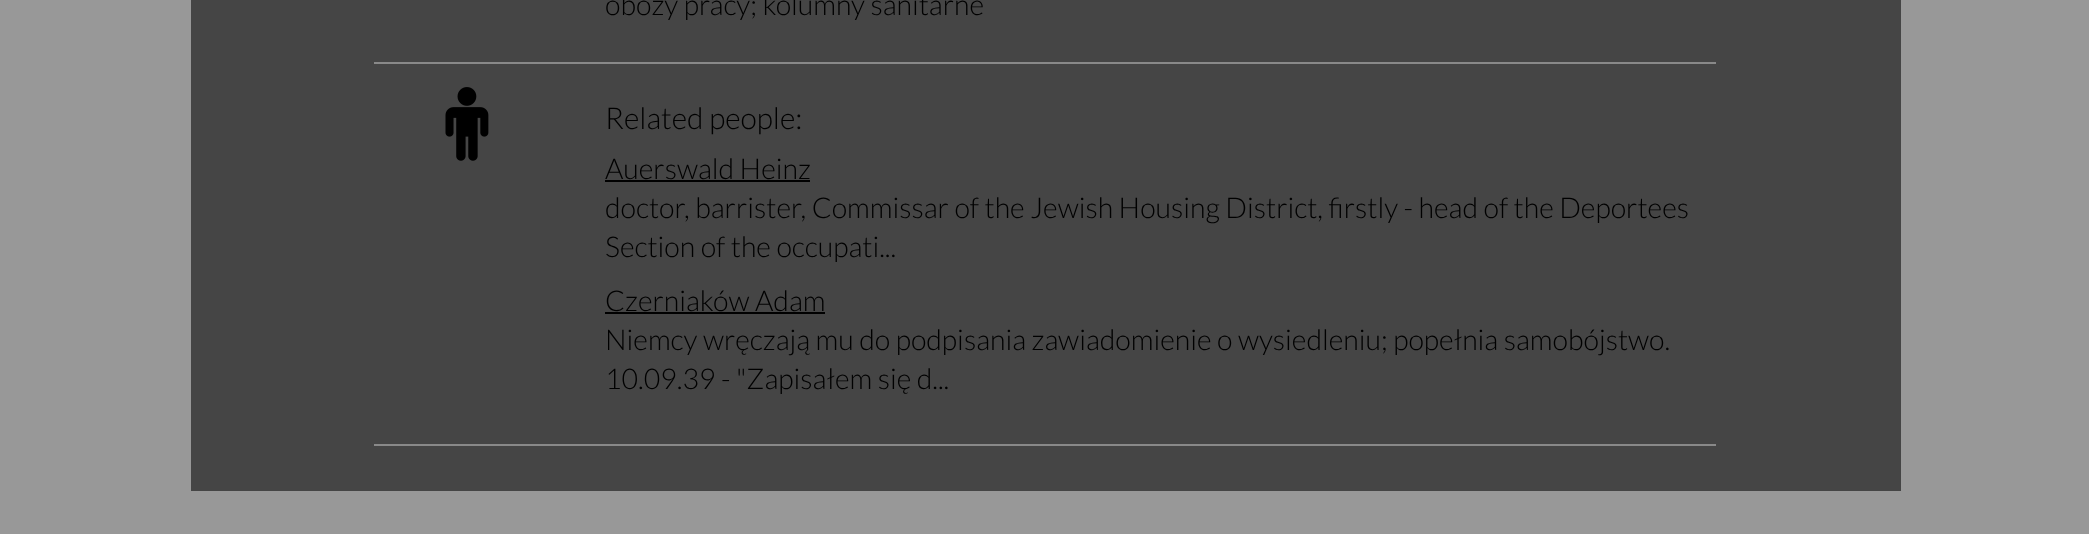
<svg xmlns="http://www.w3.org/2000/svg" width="2089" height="534">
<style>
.a{font:300 28.5px Lato;fill:#000}
.b{font:300 30px Lato;fill:#000}
</style>
<rect width="100%" height="100%" fill="#989898"/>
<path fill="#454545" d="M191 0h1710v491H191z"/>
<path fill="#898989" d="M374 62h1342v2H374z"/>
<image href="1.png" x="445" y="87" width="44" height="74"/>
<path fill="#000" d="M605 180h205v2H605z"/>
<path fill="#000" d="M605 312h220v2H605z"/>
<path fill="#898989" d="M374 444h1342v2H374z"/>
<text class="a" x="605" y="15">obozy pracy; kolumny sanitarne</text>
<text class="b" x="605" y="129">Related people:</text>
<text class="a" x="605" y="179">Auerswald Heinz</text>
<text class="a" x="605" y="218">doctor, barrister, Commissar of the Jewish Housing District, firstly - head of the Deportees</text>
<text class="a" x="605" y="257">Section of the occupati...</text>
<text class="a" x="605" y="311">Czerniaków Adam</text>
<text class="a" x="605" y="350">Niemcy wręczają mu do podpisania zawiadomienie o wysiedleniu; popełnia samobójstwo.</text>
<text class="a" x="605" y="389">10.09.39 - "Zapisałem się d...</text>
</svg>
